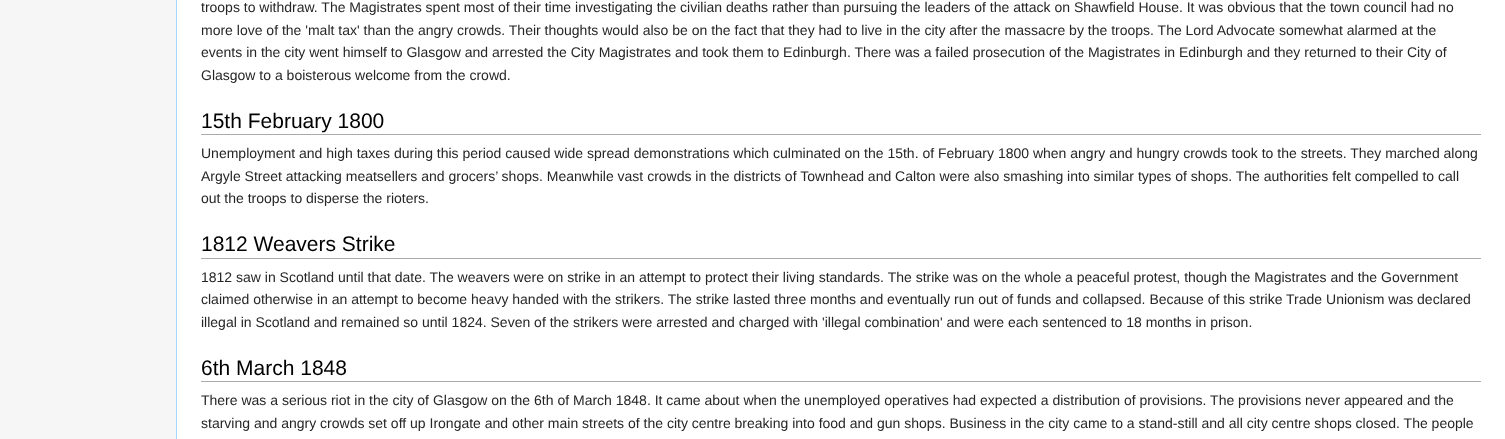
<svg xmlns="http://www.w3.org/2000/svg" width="1505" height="439">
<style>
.a{font:14px Liberation Sans;fill:#252525}
.b{font:21px Liberation Sans;fill:#000}
</style>
<rect width="100%" height="100%" fill="#f6f6f6"/>
<path fill="#fff" d="M177 0h1328v439H177z"/>
<path fill="#a7d7f9" d="M176 0h1v439H176z"/>
<path fill="#aaa" d="M201 134h1280v1H201z"/>
<path fill="#aaa" d="M201 258h1280v1H201z"/>
<path fill="#aaa" d="M201 381h1280v1H201z"/>
<text class="a" x="201" y="12">troops to withdraw. The Magistrates spent most of their time investigating the civilian deaths rather than pursuing the leaders of the attack on Shawfield House. It was obvious that the town council had no</text>
<text class="a" x="201" y="35">more love of the 'malt tax' than the angry crowds. Their thoughts would also be on the fact that they had to live in the city after the massacre by the troops. The Lord Advocate somewhat alarmed at the</text>
<text class="a" x="201" y="57">events in the city went himself to Glasgow and arrested the City Magistrates and took them to Edinburgh. There was a failed prosecution of the Magistrates in Edinburgh and they returned to their City of</text>
<text class="a" x="201" y="80">Glasgow to a boisterous welcome from the crowd.</text>
<text class="b" x="201" y="128">15th February 1800</text>
<text class="a" x="201" y="158">Unemployment and high taxes during this period caused wide spread demonstrations which culminated on the 15th. of February 1800 when angry and hungry crowds took to the streets. They marched along</text>
<text class="a" x="201" y="181">Argyle Street attacking meatsellers and grocers’ shops. Meanwhile vast crowds in the districts of Townhead and Calton were also smashing into similar types of shops. The authorities felt compelled to call</text>
<text class="a" x="201" y="203">out the troops to disperse the rioters.</text>
<text class="b" x="201" y="251">1812 Weavers Strike</text>
<text class="a" x="201" y="282">1812 saw in Scotland until that date. The weavers were on strike in an attempt to protect their living standards. The strike was on the whole a peaceful protest, though the Magistrates and the Government</text>
<text class="a" x="201" y="304">claimed otherwise in an attempt to become heavy handed with the strikers. The strike lasted three months and eventually run out of funds and collapsed. Because of this strike Trade Unionism was declared</text>
<text class="a" x="201" y="327">illegal in Scotland and remained so until 1824. Seven of the strikers were arrested and charged with 'illegal combination' and were each sentenced to 18 months in prison.</text>
<text class="b" x="201" y="375">6th March 1848</text>
<text class="a" x="201" y="405">There was a serious riot in the city of Glasgow on the 6th of March 1848. It came about when the unemployed operatives had expected a distribution of provisions. The provisions never appeared and the</text>
<text class="a" x="201" y="428">starving and angry crowds set off up Irongate and other main streets of the city centre breaking into food and gun shops. Business in the city came to a stand-still and all city centre shops closed. The people</text>
</svg>
